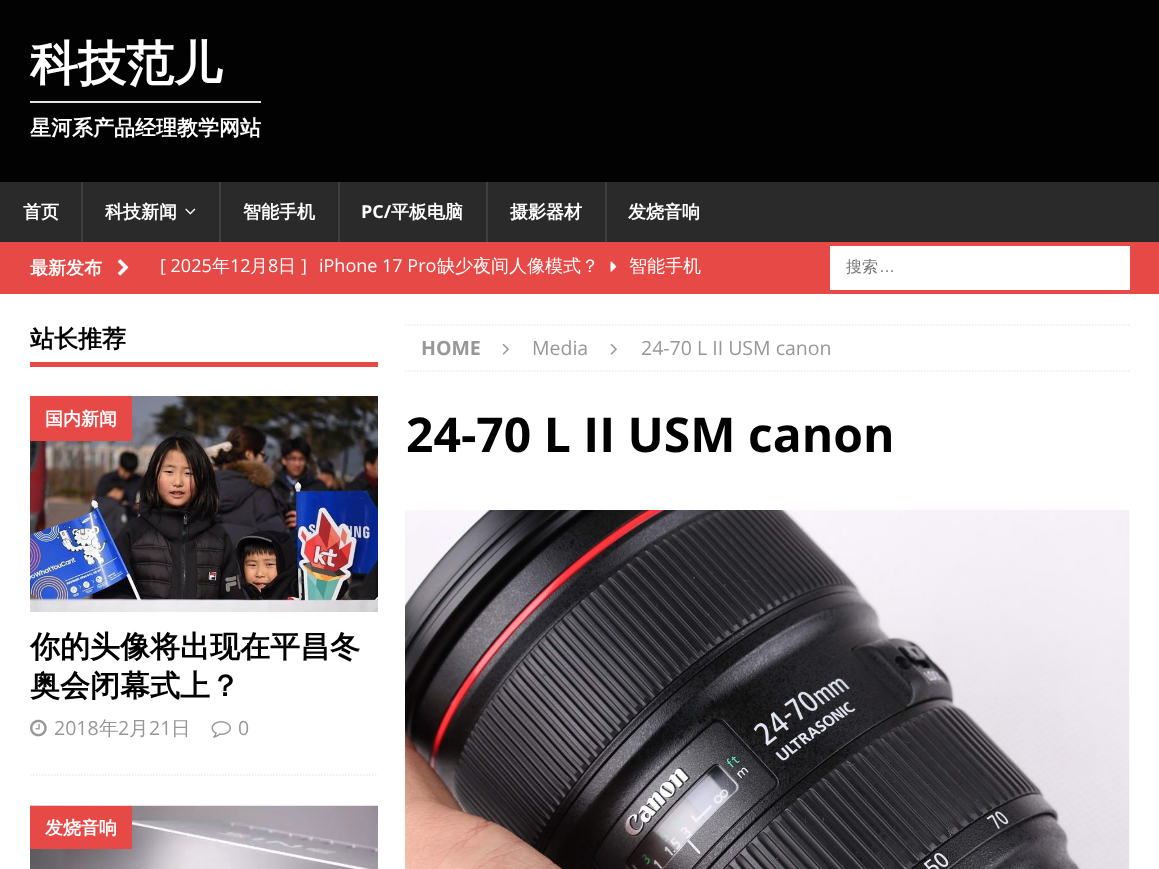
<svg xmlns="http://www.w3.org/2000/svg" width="1159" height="869">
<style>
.a{font:bold 48px WenQuanYi Zen Hei;fill:#fff}
.b{font:bold 21px WenQuanYi Zen Hei;fill:#fff}
.c{font:bold 18px WenQuanYi Zen Hei;fill:#fff}
.d{font:bold 18px Open Sans;fill:#fff}
.e{font:18px Open Sans;fill:#fff}
.f{font:500 18px WenQuanYi Zen Hei;fill:#fff}
.g{font:500 16px WenQuanYi Zen Hei;fill:#757575}
.h{font:16px Liberation Sans;fill:#757575}
.i{font:bold 24px WenQuanYi Zen Hei;fill:#000}
.j{font:bold 30px WenQuanYi Zen Hei;fill:#000}
.k{font:19.5px Open Sans;fill:#979797}
.l{font:500 19.5px WenQuanYi Zen Hei;fill:#979797}
.m{font:bold 19.5px Open Sans;fill:#979797}
.n{font:bold 48px Open Sans;fill:#000}
</style>
<rect width="100%" height="100%" fill="#fff"/>
<image href="1.png" x="0" y="0" width="1159" height="182"/>
<path fill="#e5e5e5" d="M30 101h231v2H30z"/>
<path fill="#2a2a2a" d="M0 182h1159v60H0z"/>
<path fill="#3f3f3f" d="M81 182h2v60H81z"/>
<image href="2.png" x="185" y="208" width="11" height="7"/>
<path fill="#3f3f3f" d="M219 182h2v60H219z"/>
<path fill="#3f3f3f" d="M338 182h2v60H338z"/>
<path fill="#3f3f3f" d="M486 182h2v60H486z"/>
<path fill="#3f3f3f" d="M605 182h2v60H605z"/>
<path fill="#e64946" d="M0 242h1159v52H0z"/>
<image href="3.png" x="117" y="259" width="12" height="17"/>
<image href="4.png" x="610" y="261" width="7" height="11"/>
<path fill="#fff" d="M830 246h300v44H830z"/>
<path fill="#e64946" d="M30 362h348v5H30z"/>
<path fill="none" stroke="#ebebeb" stroke-width="1.5" stroke-dasharray="1.5 1.5" d="M30 775h348"/>
<image href="5.png" x="30" y="396" width="348" height="216"/>
<path fill="#e64946" d="M30 396h102v45H30z"/>
<image href="6.png" x="30" y="719" width="17" height="18"/>
<image href="7.png" x="211" y="721" width="20" height="17"/>
<image href="8.png" x="30" y="805" width="348" height="64"/>
<path fill="#e64946" d="M30 806h102v43H30z"/>
<path fill="none" stroke="#ebebeb" stroke-width="1.5" stroke-dasharray="1.5 1.5" d="M405 325h724.5"/>
<path fill="none" stroke="#ebebeb" stroke-width="1.5" stroke-dasharray="1.5 1.5" d="M405 371h724.5"/>
<image href="9.png" x="502" y="343" width="7" height="12"/>
<image href="9.png" x="610" y="343" width="7" height="12"/>
<image href="10.png" x="405" y="510" width="725" height="359"/>
<text class="a" x="30" y="80">科技范儿</text>
<text class="b" x="30" y="135">星河系产品经理教学网站</text>
<text class="c" x="23" y="218">首页</text>
<text class="c" x="105" y="218">科技新闻</text>
<text class="c" x="243" y="218">智能手机</text>
<text class="d" x="361" y="218">PC/</text>
<text class="c" x="391" y="218">平板电脑</text>
<text class="c" x="510" y="218">摄影器材</text>
<text class="c" x="628" y="218">发烧音响</text>
<text class="c" x="30" y="274">最新发布</text>
<text class="e" x="160" y="272">[ 2025</text>
<text class="f" x="212" y="272">年</text>
<text class="e" x="230" y="272">12</text>
<text class="f" x="250" y="272">月</text>
<text class="e" x="268" y="272">8</text>
<text class="f" x="278" y="272">日</text>
<text class="e" x="301" y="272">]</text>
<text class="e" x="319" y="272">iPhone 17 Pro</text>
<text class="f" x="437" y="272">缺少夜间人像模式？</text>
<text class="f" x="629" y="272">智能手机</text>
<text class="g" x="846" y="272">搜索</text>
<text class="h" x="879" y="272">…</text>
<text class="i" x="30" y="347">站长推荐</text>
<text class="c" x="45" y="425">国内新闻</text>
<text class="j" x="30" y="657">你的头像将出现在平昌冬</text>
<text class="j" x="30" y="696">奥会闭幕式上？</text>
<text class="k" x="54" y="735">2018</text>
<text class="l" x="99" y="735">年</text>
<text class="k" x="118" y="735">2</text>
<text class="l" x="129" y="735">月</text>
<text class="k" x="149" y="735">21</text>
<text class="l" x="171" y="735">日</text>
<text class="k" x="238" y="735">0</text>
<text class="c" x="45" y="834">发烧音响</text>
<text class="m" x="421" y="355">HOME</text>
<text class="k" x="532" y="355">Media</text>
<text class="k" x="641" y="355">24-70 L II USM canon</text>
<text class="n" x="406" y="452">24-70 L II USM canon</text>
</svg>
